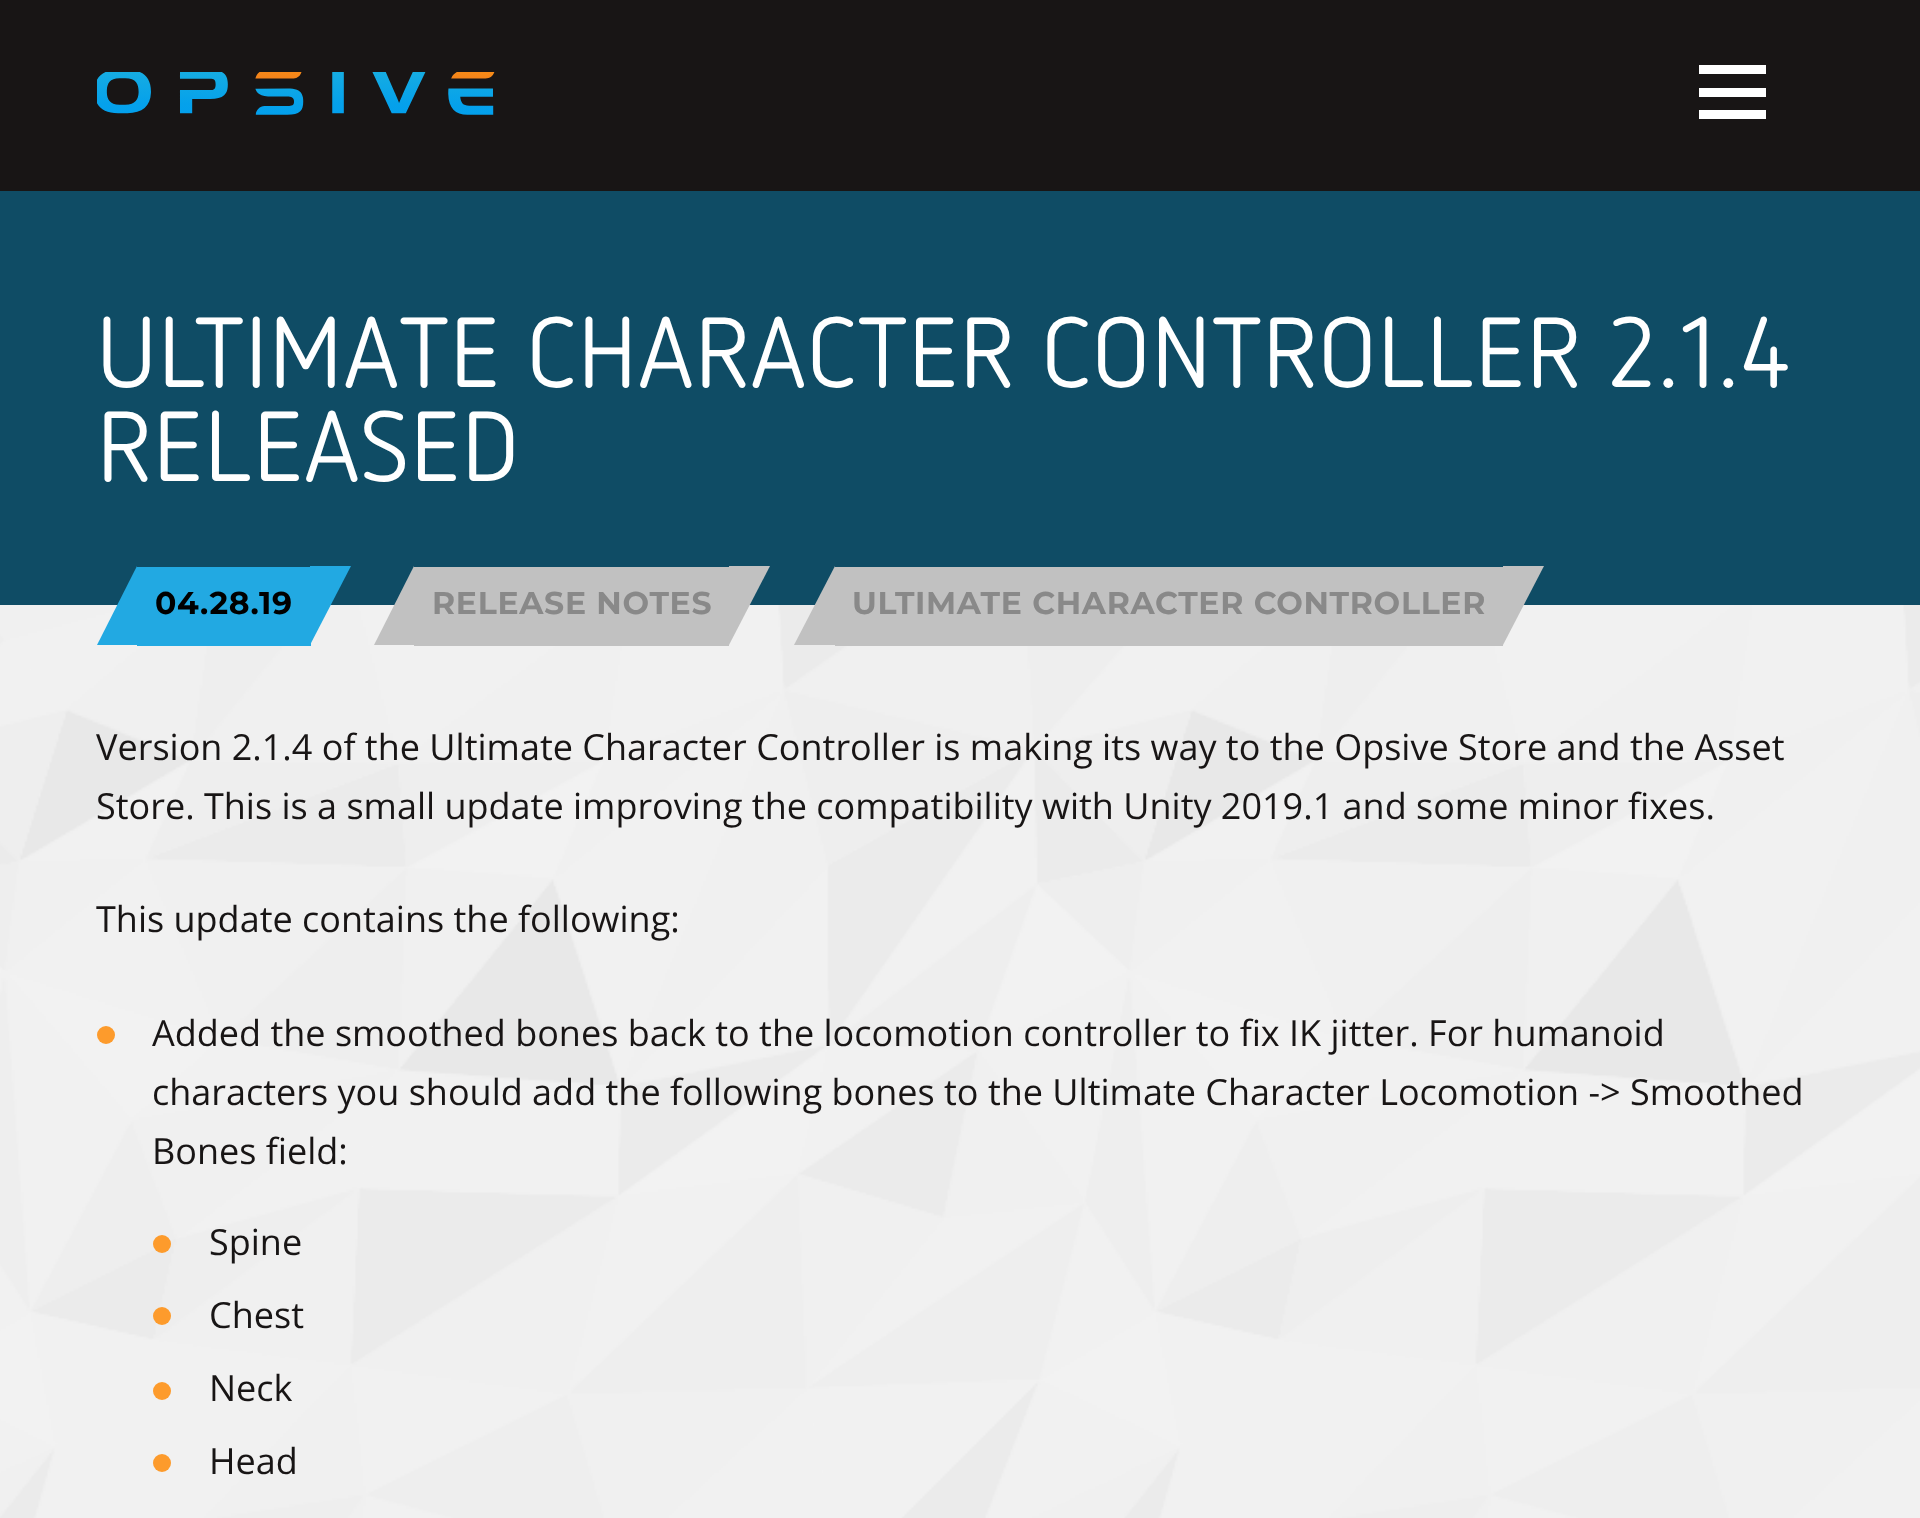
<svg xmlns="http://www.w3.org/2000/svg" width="1920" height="1518">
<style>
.a{font:99px 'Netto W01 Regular';fill:#fff}
.b{font:bold 31.5px Montserrat;letter-spacing:0.7px;fill:#000}
.c{font:bold 31.5px Montserrat;letter-spacing:0.7px;fill:#898989}
.d{font:36px Open Sans;fill:#181515}
</style>
<rect width="100%" height="100%" fill="#fff"/>
<image href="1.png" x="0" y="605" width="1920" height="913"/>
<path fill="#181515" d="M0 0h1920v191H0z"/>
<image href="2.png" x="97" y="72" width="398" height="43"/>
<path fill="#fff" d="M1699 110h67v9H1699z"/>
<path fill="#fff" d="M1699 65h67v9H1699z"/>
<path fill="#fff" d="M1699 88h67v9H1699z"/>
<path fill="#0f4c65" d="M0 191h1920v414H0z"/>
<path fill="#22a9e2" d="M137 567h174v79H137z"/>
<path fill="#22a9e2" d="M137 645h-40l40-79z"/>
<path fill="#22a9e2" d="M310 566h41l-41 79z"/>
<path fill="#c1c1c1" d="M414 567h315v79H414z"/>
<path fill="#c1c1c1" d="M414 645h-40l40-79z"/>
<path fill="#c1c1c1" d="M729 566h41l-41 79z"/>
<path fill="#c1c1c1" d="M835 567h668v79H835z"/>
<path fill="#c1c1c1" d="M835 645h-41l41-79z"/>
<path fill="#c1c1c1" d="M1503 566h41l-41 79z"/>
<circle fill="#fd9b2c" cx="106" cy="1035" r="9"/>
<circle fill="#fd9b2c" cx="162" cy="1244" r="9"/>
<circle fill="#fd9b2c" cx="162" cy="1316" r="9"/>
<circle fill="#fd9b2c" cx="162" cy="1391" r="9"/>
<circle fill="#fd9b2c" cx="162" cy="1463" r="9"/>
<text class="a" x="96" y="387">ULTIMATE CHARACTER CONTROLLER 2.1.4</text>
<text class="a" x="96" y="481">RELEASED</text>
<text class="b" x="155" y="614">04.28.19</text>
<text class="c" x="432" y="614">RELEASE NOTES</text>
<text class="c" x="852" y="614">ULTIMATE CHARACTER CONTROLLER</text>
<text class="d" x="96" y="760">Version 2.1.4 of the Ultimate Character Controller is making its way to the Opsive Store and the Asset</text>
<text class="d" x="96" y="819">Store. This is a small update improving the compatibility with Unity 2019.1 and some minor fixes.</text>
<text class="d" x="96" y="932">This update contains the following:</text>
<text class="d" x="152" y="1046">Added the smoothed bones back to the locomotion controller to fix IK jitter. For humanoid</text>
<text class="d" x="152" y="1105">characters you should add the following bones to the Ultimate Character Locomotion -&gt; Smoothed</text>
<text class="d" x="152" y="1164">Bones field:</text>
<text class="d" x="209" y="1255">Spine</text>
<text class="d" x="209" y="1328">Chest</text>
<text class="d" x="209" y="1401">Neck</text>
<text class="d" x="209" y="1474">Head</text>
</svg>
